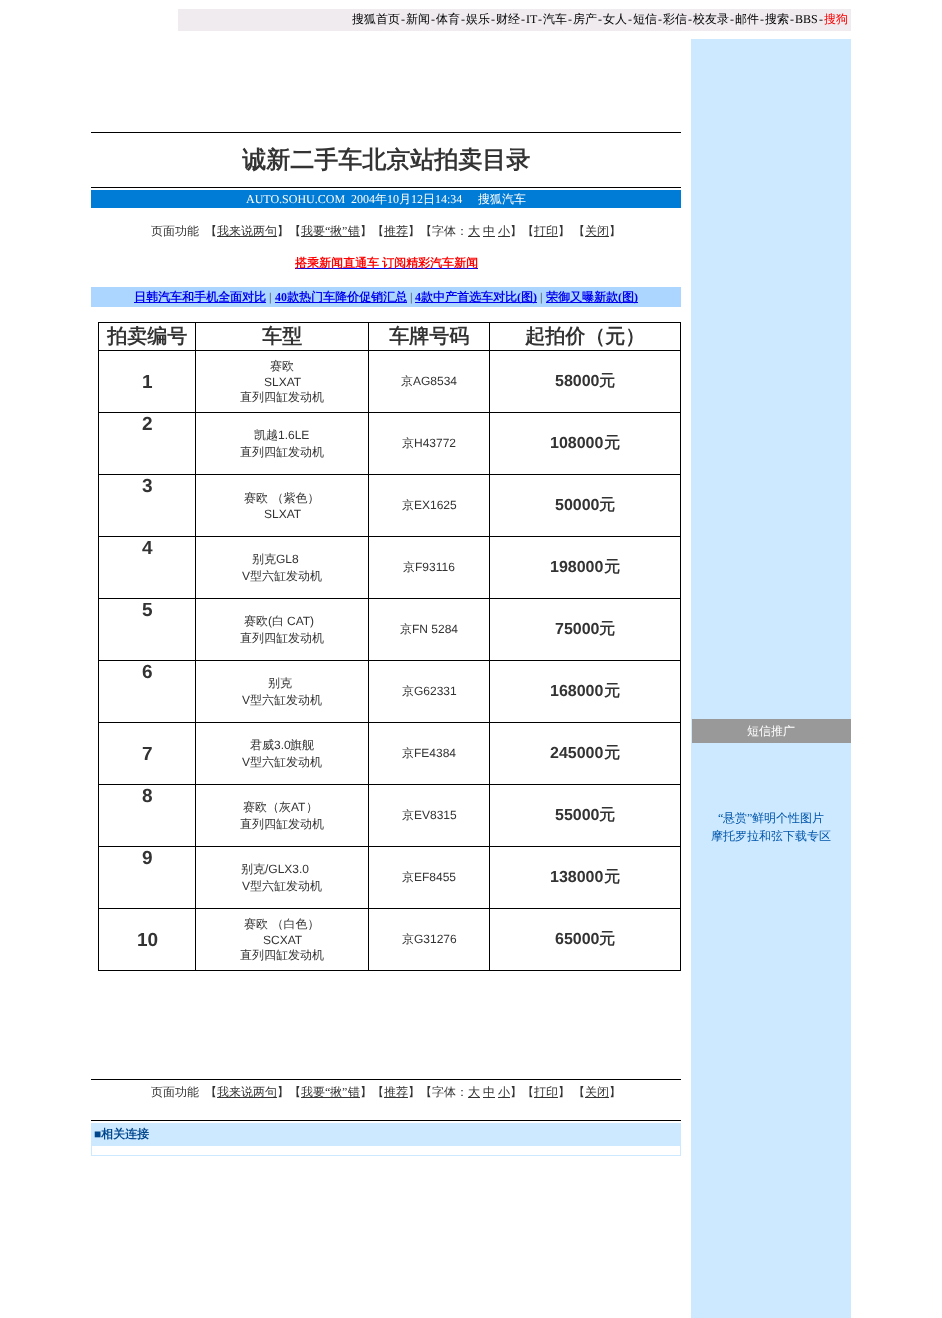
<svg xmlns="http://www.w3.org/2000/svg" width="942" height="1318">
<style>
.a{font:500 12px WenQuanYi Zen Hei;fill:#000}
.b{font:12px Liberation Serif;fill:#000}
.c{font:500 12px WenQuanYi Zen Hei;fill:#f00}
.d{font:bold 24px WenQuanYi Zen Hei;fill:#333}
.e{font:12px Liberation Serif;fill:#fff}
.f{font:500 12px WenQuanYi Zen Hei;fill:#fff}
.g{font:500 12px WenQuanYi Zen Hei;fill:#333}
.h{font:12px Liberation Serif;fill:#333}
.i{font:bold 12px WenQuanYi Zen Hei;fill:#f00}
.j{font:bold 12px WenQuanYi Zen Hei;fill:#00e}
.k{font:bold 12px Liberation Serif;fill:#00e}
.l{font:bold 20px WenQuanYi Zen Hei;fill:#333}
.m{font:bold 19px Liberation Sans;fill:#333}
.n{font:12px Liberation Sans;fill:#333}
.o{font:bold 16px Liberation Sans;fill:#333}
.p{font:bold 16px WenQuanYi Zen Hei;fill:#333}
.q{font:12px Liberation Serif;fill:#00468c}
.r{font:bold 12px WenQuanYi Zen Hei;fill:#00468c}
.s{font:12px Liberation Serif;fill:#05a}
.t{font:500 12px WenQuanYi Zen Hei;fill:#05a}
</style>
<rect width="100%" height="100%" fill="#fff"/>
<path fill="#efebef" d="M178 9h673v22H178z"/>
<path fill="#000" d="M91 132h590v1H91z"/>
<path fill="#000" d="M91 187h590v1H91z"/>
<path fill="#007bd6" d="M91 190h590v18H91z"/>
<path fill="#333" d="M217 236h60v1H217z"/>
<path fill="#333" d="M301 236h59v1H301z"/>
<path fill="#333" d="M384 236h24v1H384z"/>
<path fill="#333" d="M468 236h12v1H468z"/>
<path fill="#333" d="M483 236h12v1H483z"/>
<path fill="#333" d="M498 236h12v1H498z"/>
<path fill="#333" d="M534 236h24v1H534z"/>
<path fill="#333" d="M585 236h24v1H585z"/>
<path fill="#00e" d="M295 268h183v1H295z"/>
<path fill="#acd6ff" d="M91 287h590v20H91z"/>
<path fill="#00e" d="M134 302h132v1H134z"/>
<path fill="#00e" d="M275 302h132v1H275z"/>
<path fill="#00e" d="M415 302h122v1H415z"/>
<path fill="#00e" d="M546 302h92v1H546z"/>
<path fill="#000" d="M98 322h583v1H98z"/>
<path fill="#000" d="M680 350h1v621H680z"/>
<path fill="#000" d="M680 322h1v29H680z"/>
<path fill="#000" d="M489 970h192v1H489z"/>
<path fill="#000" d="M489 908h1v63H489z"/>
<path fill="#000" d="M489 908h192v1H489z"/>
<path fill="#000" d="M489 846h1v63H489z"/>
<path fill="#000" d="M489 846h192v1H489z"/>
<path fill="#000" d="M489 784h1v63H489z"/>
<path fill="#000" d="M489 784h192v1H489z"/>
<path fill="#000" d="M489 722h1v63H489z"/>
<path fill="#000" d="M489 722h192v1H489z"/>
<path fill="#000" d="M489 660h1v63H489z"/>
<path fill="#000" d="M489 660h192v1H489z"/>
<path fill="#000" d="M489 598h1v63H489z"/>
<path fill="#000" d="M489 598h192v1H489z"/>
<path fill="#000" d="M489 536h1v63H489z"/>
<path fill="#000" d="M489 536h192v1H489z"/>
<path fill="#000" d="M489 474h1v63H489z"/>
<path fill="#000" d="M489 474h192v1H489z"/>
<path fill="#000" d="M489 412h1v63H489z"/>
<path fill="#000" d="M489 412h192v1H489z"/>
<path fill="#000" d="M489 350h1v63H489z"/>
<path fill="#000" d="M489 350h192v1H489z"/>
<path fill="#000" d="M489 322h1v29H489z"/>
<path fill="#000" d="M368 970h122v1H368z"/>
<path fill="#000" d="M368 908h1v63H368z"/>
<path fill="#000" d="M368 908h122v1H368z"/>
<path fill="#000" d="M368 846h1v63H368z"/>
<path fill="#000" d="M368 846h122v1H368z"/>
<path fill="#000" d="M368 784h1v63H368z"/>
<path fill="#000" d="M368 784h122v1H368z"/>
<path fill="#000" d="M368 722h1v63H368z"/>
<path fill="#000" d="M368 722h122v1H368z"/>
<path fill="#000" d="M368 660h1v63H368z"/>
<path fill="#000" d="M368 660h122v1H368z"/>
<path fill="#000" d="M368 598h1v63H368z"/>
<path fill="#000" d="M368 598h122v1H368z"/>
<path fill="#000" d="M368 536h1v63H368z"/>
<path fill="#000" d="M368 536h122v1H368z"/>
<path fill="#000" d="M368 474h1v63H368z"/>
<path fill="#000" d="M368 474h122v1H368z"/>
<path fill="#000" d="M368 412h1v63H368z"/>
<path fill="#000" d="M368 412h122v1H368z"/>
<path fill="#000" d="M368 350h1v63H368z"/>
<path fill="#000" d="M368 350h122v1H368z"/>
<path fill="#000" d="M368 322h1v29H368z"/>
<path fill="#000" d="M195 970h174v1H195z"/>
<path fill="#000" d="M195 908h1v63H195z"/>
<path fill="#000" d="M195 908h174v1H195z"/>
<path fill="#000" d="M195 846h1v63H195z"/>
<path fill="#000" d="M195 846h174v1H195z"/>
<path fill="#000" d="M195 784h1v63H195z"/>
<path fill="#000" d="M195 784h174v1H195z"/>
<path fill="#000" d="M195 722h1v63H195z"/>
<path fill="#000" d="M195 722h174v1H195z"/>
<path fill="#000" d="M195 660h1v63H195z"/>
<path fill="#000" d="M195 660h174v1H195z"/>
<path fill="#000" d="M195 598h1v63H195z"/>
<path fill="#000" d="M195 598h174v1H195z"/>
<path fill="#000" d="M195 536h1v63H195z"/>
<path fill="#000" d="M195 536h174v1H195z"/>
<path fill="#000" d="M195 474h1v63H195z"/>
<path fill="#000" d="M195 474h174v1H195z"/>
<path fill="#000" d="M195 412h1v63H195z"/>
<path fill="#000" d="M195 412h174v1H195z"/>
<path fill="#000" d="M195 350h1v63H195z"/>
<path fill="#000" d="M195 350h174v1H195z"/>
<path fill="#000" d="M195 322h1v29H195z"/>
<path fill="#000" d="M98 970h98v1H98z"/>
<path fill="#000" d="M98 908h1v63H98z"/>
<path fill="#000" d="M98 908h98v1H98z"/>
<path fill="#000" d="M98 846h1v63H98z"/>
<path fill="#000" d="M98 846h98v1H98z"/>
<path fill="#000" d="M98 784h1v63H98z"/>
<path fill="#000" d="M98 784h98v1H98z"/>
<path fill="#000" d="M98 722h1v63H98z"/>
<path fill="#000" d="M98 722h98v1H98z"/>
<path fill="#000" d="M98 660h1v63H98z"/>
<path fill="#000" d="M98 660h98v1H98z"/>
<path fill="#000" d="M98 598h1v63H98z"/>
<path fill="#000" d="M98 598h98v1H98z"/>
<path fill="#000" d="M98 536h1v63H98z"/>
<path fill="#000" d="M98 536h98v1H98z"/>
<path fill="#000" d="M98 474h1v63H98z"/>
<path fill="#000" d="M98 474h98v1H98z"/>
<path fill="#000" d="M98 412h1v63H98z"/>
<path fill="#000" d="M98 412h98v1H98z"/>
<path fill="#000" d="M98 350h1v63H98z"/>
<path fill="#000" d="M98 350h98v1H98z"/>
<path fill="#000" d="M98 322h1v29H98z"/>
<path fill="#000" d="M91 1079h590v1H91z"/>
<path fill="#333" d="M217 1097h60v1H217z"/>
<path fill="#333" d="M301 1097h59v1H301z"/>
<path fill="#333" d="M384 1097h24v1H384z"/>
<path fill="#333" d="M468 1097h12v1H468z"/>
<path fill="#333" d="M483 1097h12v1H483z"/>
<path fill="#333" d="M498 1097h12v1H498z"/>
<path fill="#333" d="M534 1097h24v1H534z"/>
<path fill="#333" d="M585 1097h24v1H585z"/>
<path fill="#000" d="M91 1120h590v1H91z"/>
<path fill="#cce9ff" d="M91 1123h590v33H91z"/>
<path fill="#fff" d="M92 1146h588v9H92z"/>
<path fill="#cce9ff" d="M691 39h160v1279H691z"/>
<path fill="#999" d="M692 719h159v24H692z"/>
<text class="a" x="352" y="23">搜狐首页</text>
<text class="b" x="401" y="23">-</text>
<text class="a" x="406" y="23">新闻</text>
<text class="b" x="431" y="23">-</text>
<text class="a" x="436" y="23">体育</text>
<text class="b" x="461" y="23">-</text>
<text class="a" x="466" y="23">娱乐</text>
<text class="b" x="491" y="23">-</text>
<text class="a" x="496" y="23">财经</text>
<text class="b" x="521" y="23">-</text>
<text class="b" x="526" y="23">IT</text>
<text class="b" x="538" y="23">-</text>
<text class="a" x="543" y="23">汽车</text>
<text class="b" x="568" y="23">-</text>
<text class="a" x="573" y="23">房产</text>
<text class="b" x="598" y="23">-</text>
<text class="a" x="603" y="23">女人</text>
<text class="b" x="628" y="23">-</text>
<text class="a" x="633" y="23">短信</text>
<text class="b" x="658" y="23">-</text>
<text class="a" x="663" y="23">彩信</text>
<text class="b" x="688" y="23">-</text>
<text class="a" x="693" y="23">校友录</text>
<text class="b" x="730" y="23">-</text>
<text class="a" x="735" y="23">邮件</text>
<text class="b" x="760" y="23">-</text>
<text class="a" x="765" y="23">搜索</text>
<text class="b" x="790" y="23">-</text>
<text class="b" x="795" y="23">BBS</text>
<text class="b" x="819" y="23">-</text>
<text class="c" x="824" y="23">搜狗</text>
<text class="d" x="242" y="168">诚新二手车北京站拍卖目录</text>
<text class="e" xml:space="preserve" x="246" y="203">AUTO.SOHU.COM  2004</text>
<text class="f" x="375" y="203">年</text>
<text class="e" x="387" y="203">10</text>
<text class="f" x="399" y="203">月</text>
<text class="e" x="411" y="203">12</text>
<text class="f" x="423" y="203">日</text>
<text class="e" x="435" y="203">14:34</text>
<text class="f" x="478" y="203">搜狐汽车</text>
<text class="g" x="151" y="235">页面功能</text>
<text class="g" x="205" y="235">【</text>
<text class="g" x="217" y="235">我来说两句】【</text>
<text class="g" x="301" y="235">我要</text>
<text class="h" x="325" y="235">“</text>
<text class="g" x="330" y="235">揪</text>
<text class="h" x="342" y="235">”</text>
<text class="g" x="348" y="235">错】【</text>
<text class="g" x="384" y="235">推荐】【字体：</text>
<text class="g" x="468" y="235">大</text>
<text class="g" x="483" y="235">中</text>
<text class="g" x="498" y="235">小】【</text>
<text class="g" x="534" y="235">打印】</text>
<text class="g" x="573" y="235">【</text>
<text class="g" x="585" y="235">关闭】</text>
<text class="i" x="295" y="267">搭乘新闻直通车</text>
<text class="i" x="382" y="267">订阅精彩汽车新闻</text>
<text class="j" x="134" y="301">日韩汽车和手机全面对比</text>
<text class="h" x="269" y="301">|</text>
<text class="k" x="275" y="301">40</text>
<text class="j" x="287" y="301">款热门车降价促销汇总</text>
<text class="h" x="410" y="301">|</text>
<text class="k" x="415" y="301">4</text>
<text class="j" x="421" y="301">款中产首选车对比</text>
<text class="k" x="517" y="301">(</text>
<text class="j" x="521" y="301">图</text>
<text class="k" x="533" y="301">)</text>
<text class="h" x="540" y="301">|</text>
<text class="j" x="546" y="301">荣御又曝新款</text>
<text class="k" x="618" y="301">(</text>
<text class="j" x="622" y="301">图</text>
<text class="k" x="634" y="301">)</text>
<text class="l" x="107" y="343">拍卖编号</text>
<text class="l" x="262" y="343">车型</text>
<text class="l" x="389" y="343">车牌号码</text>
<text class="l" x="525" y="343">起拍价（元）</text>
<text class="m" x="142" y="388">1</text>
<text class="g" x="270" y="370">赛欧</text>
<text class="n" x="264" y="386">SLXAT</text>
<text class="g" x="240" y="401">直列四缸发动机</text>
<text class="g" x="401" y="385">京</text>
<text class="n" x="413" y="385">AG8534</text>
<text class="o" x="555" y="386">58000</text>
<text class="p" x="599" y="386">元</text>
<text class="m" x="142" y="430">2</text>
<text class="g" x="254" y="439">凯越</text>
<text class="n" x="278" y="439">1.6LE</text>
<text class="g" x="240" y="456">直列四缸发动机</text>
<text class="g" x="402" y="447">京</text>
<text class="n" x="414" y="447">H43772</text>
<text class="o" x="550" y="448">108000</text>
<text class="p" x="604" y="448">元</text>
<text class="m" x="142" y="492">3</text>
<text class="g" x="244" y="502">赛欧 （紫色）</text>
<text class="n" x="264" y="518">SLXAT</text>
<text class="g" x="402" y="509">京</text>
<text class="n" x="414" y="509">EX1625</text>
<text class="o" x="555" y="510">50000</text>
<text class="p" x="599" y="510">元</text>
<text class="m" x="142" y="554">4</text>
<text class="g" x="252" y="563">别克</text>
<text class="n" x="276" y="563">GL8</text>
<text class="n" x="242" y="580">V</text>
<text class="g" x="250" y="580">型六缸发动机</text>
<text class="g" x="403" y="571">京</text>
<text class="n" x="415" y="571">F93116</text>
<text class="o" x="550" y="572">198000</text>
<text class="p" x="604" y="572">元</text>
<text class="m" x="142" y="616">5</text>
<text class="g" x="244" y="625">赛欧</text>
<text class="n" x="268" y="625">(</text>
<text class="g" x="272" y="625">白</text>
<text class="n" x="287" y="625">CAT)</text>
<text class="g" x="240" y="642">直列四缸发动机</text>
<text class="g" x="400" y="633">京</text>
<text class="n" x="412" y="633">FN 5284</text>
<text class="o" x="555" y="634">75000</text>
<text class="p" x="599" y="634">元</text>
<text class="m" x="142" y="678">6</text>
<text class="g" x="268" y="687">别克</text>
<text class="n" x="242" y="704">V</text>
<text class="g" x="250" y="704">型六缸发动机</text>
<text class="g" x="402" y="695">京</text>
<text class="n" x="414" y="695">G62331</text>
<text class="o" x="550" y="696">168000</text>
<text class="p" x="604" y="696">元</text>
<text class="m" x="142" y="760">7</text>
<text class="g" x="250" y="749">君威</text>
<text class="n" x="274" y="749">3.0</text>
<text class="g" x="290" y="749">旗舰</text>
<text class="n" x="242" y="766">V</text>
<text class="g" x="250" y="766">型六缸发动机</text>
<text class="g" x="402" y="757">京</text>
<text class="n" x="414" y="757">FE4384</text>
<text class="o" x="550" y="758">245000</text>
<text class="p" x="604" y="758">元</text>
<text class="m" x="142" y="802">8</text>
<text class="g" x="243" y="811">赛欧（灰</text>
<text class="n" x="291" y="811">AT</text>
<text class="g" x="306" y="811">）</text>
<text class="g" x="240" y="828">直列四缸发动机</text>
<text class="g" x="402" y="819">京</text>
<text class="n" x="414" y="819">EV8315</text>
<text class="o" x="555" y="820">55000</text>
<text class="p" x="599" y="820">元</text>
<text class="m" x="142" y="864">9</text>
<text class="g" x="241" y="873">别克</text>
<text class="n" x="265" y="873">/GLX3.0</text>
<text class="n" x="242" y="890">V</text>
<text class="g" x="250" y="890">型六缸发动机</text>
<text class="g" x="402" y="881">京</text>
<text class="n" x="414" y="881">EF8455</text>
<text class="o" x="550" y="882">138000</text>
<text class="p" x="604" y="882">元</text>
<text class="m" x="137" y="946">10</text>
<text class="g" x="244" y="928">赛欧 （白色）</text>
<text class="n" x="263" y="944">SCXAT</text>
<text class="g" x="240" y="959">直列四缸发动机</text>
<text class="g" x="402" y="943">京</text>
<text class="n" x="414" y="943">G31276</text>
<text class="o" x="555" y="944">65000</text>
<text class="p" x="599" y="944">元</text>
<text class="g" x="151" y="1096">页面功能</text>
<text class="g" x="205" y="1096">【</text>
<text class="g" x="217" y="1096">我来说两句】【</text>
<text class="g" x="301" y="1096">我要</text>
<text class="h" x="325" y="1096">“</text>
<text class="g" x="330" y="1096">揪</text>
<text class="h" x="342" y="1096">”</text>
<text class="g" x="348" y="1096">错】【</text>
<text class="g" x="384" y="1096">推荐】【字体：</text>
<text class="g" x="468" y="1096">大</text>
<text class="g" x="483" y="1096">中</text>
<text class="g" x="498" y="1096">小】【</text>
<text class="g" x="534" y="1096">打印】</text>
<text class="g" x="573" y="1096">【</text>
<text class="g" x="585" y="1096">关闭】</text>
<text class="q" x="94" y="1138">■</text>
<text class="r" x="101" y="1138">相关连接</text>
<text class="f" x="747" y="735">短信推广</text>
<text class="s" x="718" y="822">“</text>
<text class="t" x="723" y="822">悬赏</text>
<text class="s" x="747" y="822">”</text>
<text class="t" x="752" y="822">鲜明个性图片</text>
<text class="t" x="711" y="840">摩托罗拉和弦下载专区</text>
</svg>
